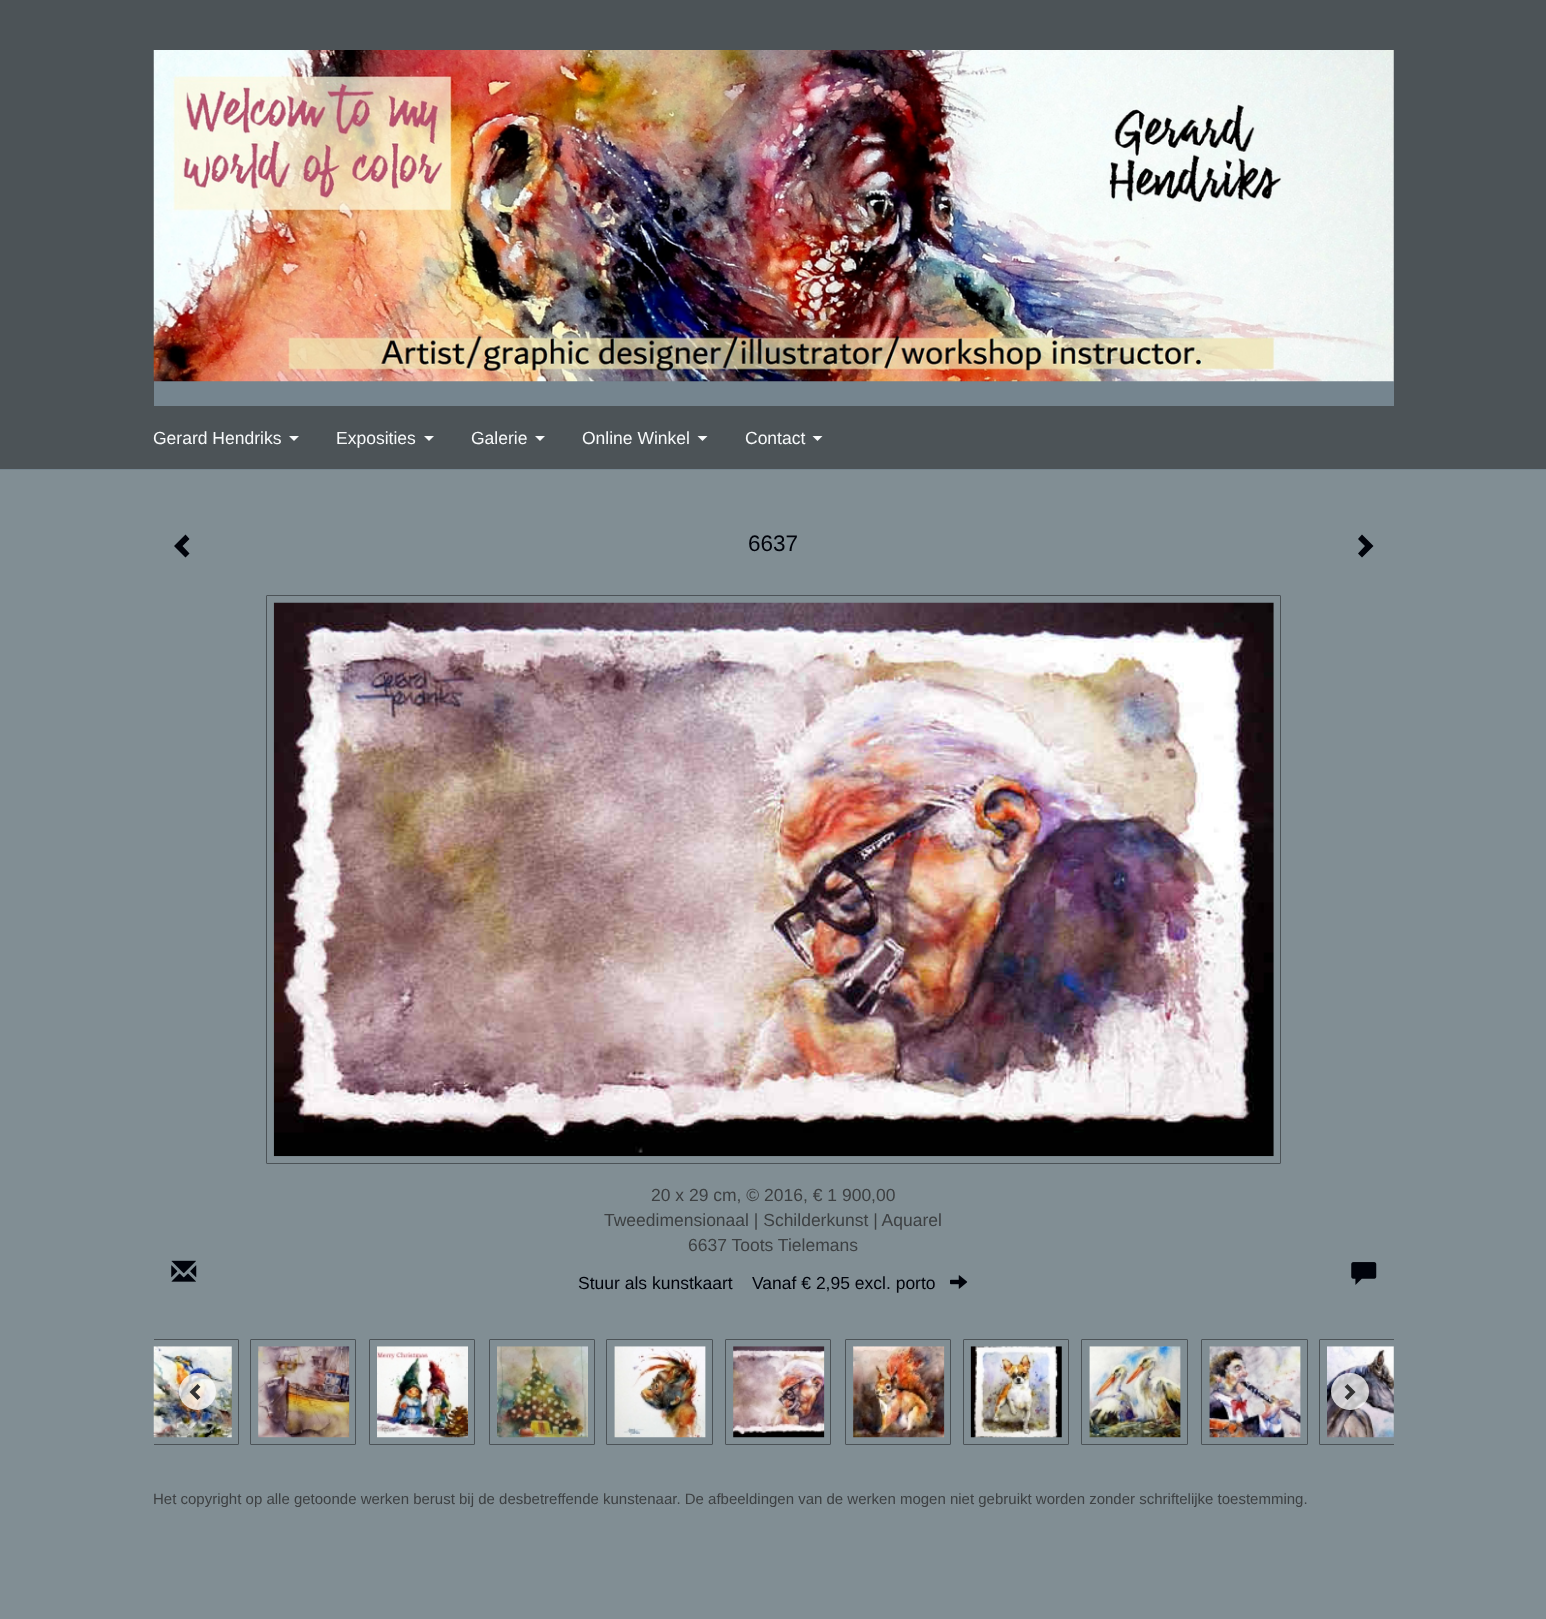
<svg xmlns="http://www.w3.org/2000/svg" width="1546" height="1619">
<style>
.a{font:17.5px Liberation Sans;fill:#f7f9fa}
.b{font:22.5px Liberation Sans;fill:#00030b}
.c{font:17.5px Liberation Sans;fill:#3d4042}
.d{font:17.5px Liberation Sans;fill:#00030b}
.e{font:15px Liberation Sans;fill:#3d4042}
</style>
<defs>
<clipPath id="clip1"><path d="M154 1333h1240v118H154z"/></clipPath>
</defs>
<rect width="100%" height="100%" fill="#818e94"/>
<path fill="#4c5357" d="M0 0h1546v469H0z"/>
<path fill="#75858f" d="M154 381h1240v25H154z"/>
<image href="1.png" x="153" y="50" width="1241" height="332"/>
<path fill="#75858f" d="M0 469h1546v1H0z"/>
<path fill="#f7f9fa" d="M289 436h10l-5 5z"/>
<path fill="#f7f9fa" d="M424 436h10l-5 5z"/>
<path fill="#f7f9fa" d="M535 436h10l-5 5z"/>
<path fill="#f7f9fa" d="M697.5 436h10l-5 5z"/>
<path fill="#f7f9fa" d="M812.5 436h10l-5 5z"/>
<path fill="#00030b" d="M189.5 539l-7 7l7 7.5l-4 4l-11.5-11.5l11.5-11.5z"/>
<path fill="#00030b" d="M1373.5 546l-11.5 11.5l-4-4l7-7.5l-7-7l4-4.5z"/>
<rect fill="none" stroke="#4c5357" x="266.5" y="595.5" width="1014" height="568" rx="0.5"/>
<image href="2.png" x="273" y="602" width="1001" height="555"/>
<image href="3.png" x="171" y="1260" width="26" height="22"/>
<image href="4.png" x="950" y="1275" width="18" height="14"/>
<image href="5.png" x="1351" y="1262" width="26" height="23"/>
<g clip-path="url(#clip1)">
<rect fill="none" stroke="#4c5357" x="133.5" y="1339.5" width="105" height="105" rx="0.5"/>
</g>
<image href="6.png" x="153" y="1346" width="79" height="92"/>
<rect fill="none" stroke="#4c5357" x="250.5" y="1339.5" width="105" height="105" rx="0.5"/>
<image href="7.png" x="258" y="1346" width="92" height="92"/>
<rect fill="none" stroke="#4c5357" x="369.5" y="1339.5" width="105" height="105" rx="0.5"/>
<image href="8.png" x="377" y="1346" width="91" height="92"/>
<rect fill="none" stroke="#4c5357" x="489.5" y="1339.5" width="105" height="105" rx="0.5"/>
<image href="9.png" x="497" y="1346" width="91" height="92"/>
<rect fill="none" stroke="#4c5357" x="606.5" y="1339.5" width="106" height="105" rx="0.5"/>
<image href="10.png" x="614" y="1346" width="92" height="92"/>
<rect fill="none" stroke="#4c5357" x="725.5" y="1339.5" width="105" height="105" rx="0.5"/>
<image href="11.png" x="733" y="1346" width="92" height="92"/>
<rect fill="none" stroke="#4c5357" x="845.5" y="1339.5" width="105" height="105" rx="0.5"/>
<image href="12.png" x="853" y="1346" width="92" height="92"/>
<rect fill="none" stroke="#4c5357" x="963.5" y="1339.5" width="105" height="105" rx="0.5"/>
<image href="13.png" x="970" y="1346" width="92" height="92"/>
<rect fill="none" stroke="#4c5357" x="1081.5" y="1339.5" width="106" height="105" rx="0.5"/>
<image href="14.png" x="1089" y="1346" width="92" height="92"/>
<rect fill="none" stroke="#4c5357" x="1201.5" y="1339.5" width="106" height="105" rx="0.5"/>
<image href="15.png" x="1209" y="1346" width="92" height="92"/>
<g clip-path="url(#clip1)">
<rect fill="none" stroke="#4c5357" x="1319.5" y="1339.5" width="105" height="105" rx="0.5"/>
</g>
<image href="16.png" x="1327" y="1346" width="67" height="92"/>
<circle fill="#ffffffbf" cx="197.5" cy="1391.5" r="18.5"/>
<image href="17.png" x="189" y="1384" width="12" height="16"/>
<rect fill="#ffffffbf" x="1331" y="1373" width="38" height="37" rx="18.5"/>
<image href="18.png" x="1344" y="1384" width="12" height="16"/>
<text class="a" x="153" y="444">Gerard Hendriks</text>
<text class="a" x="336" y="444">Exposities</text>
<text class="a" x="471" y="444">Galerie</text>
<text class="a" x="582" y="444">Online Winkel</text>
<text class="a" x="745" y="444">Contact</text>
<text class="b" x="748" y="551">6637</text>
<text class="c" x="651" y="1201">20 x 29 cm, © 2016, € 1 900,00</text>
<text class="c" x="604" y="1226">Tweedimensionaal | Schilderkunst | Aquarel</text>
<text class="c" x="688" y="1251">6637 Toots Tielemans</text>
<text class="d" x="578" y="1289">Stuur als kunstkaart</text>
<text class="d" x="752" y="1289">Vanaf € 2,95 excl. porto</text>
<text class="e" x="153" y="1504">Het copyright op alle getoonde werken berust bij de desbetreffende kunstenaar. De afbeeldingen van de werken mogen niet gebruikt worden zonder schriftelijke toestemming.</text>
</svg>
